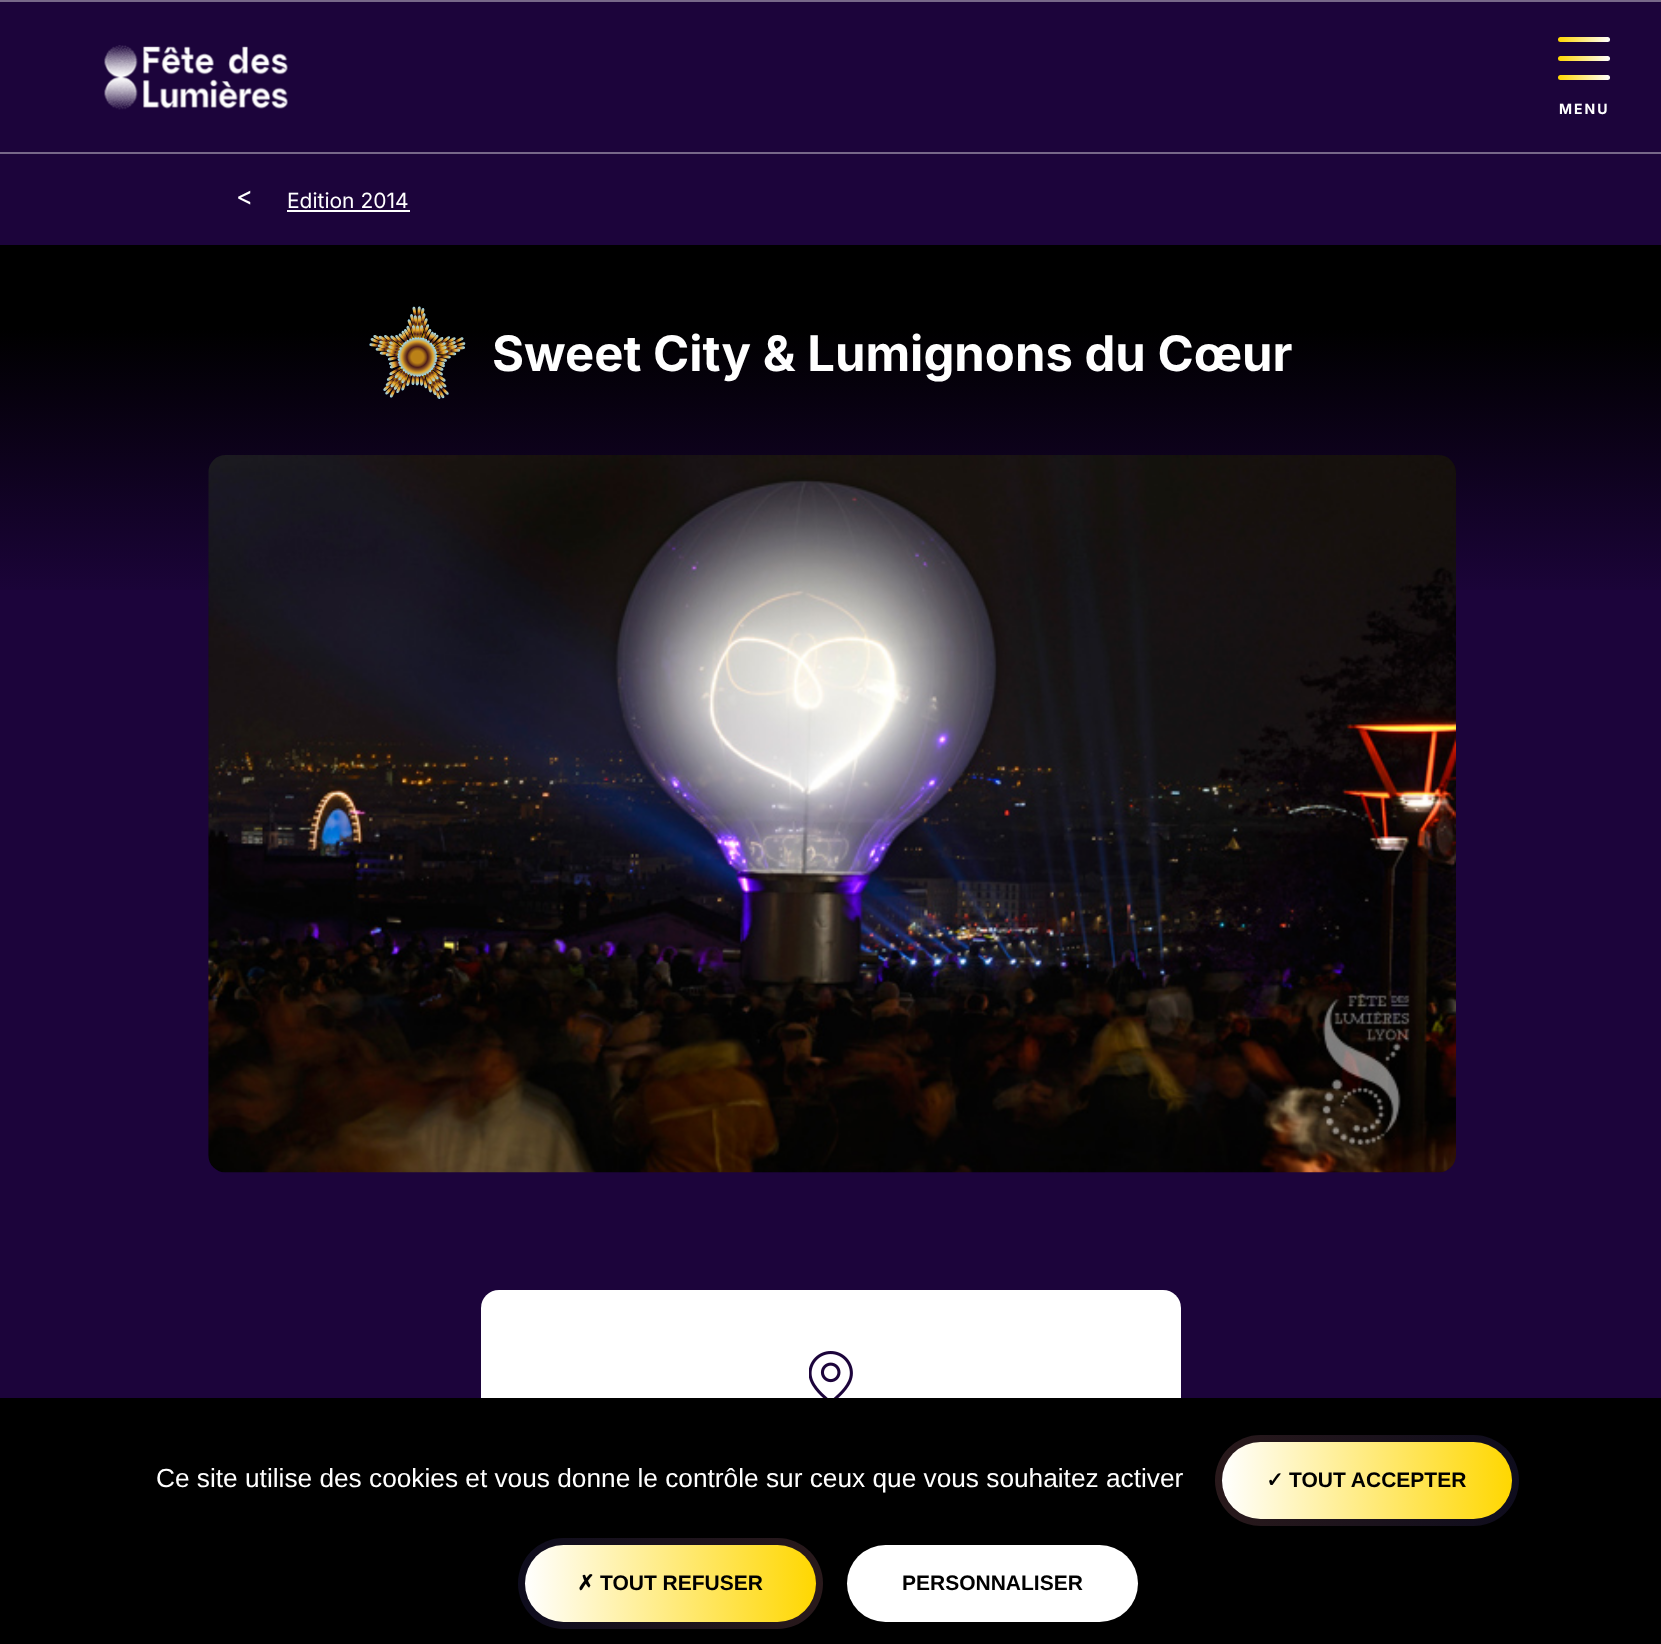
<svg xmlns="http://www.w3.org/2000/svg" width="1661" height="1644">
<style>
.a{font:bold 14px Inter;letter-spacing:2px;fill:#fff}
.b{font:26px Inter;fill:#fff}
.c{font:21px Inter;fill:#fff}
.d{font:bold 49px Inter;fill:#fff}
.e{font:26.25px Liberation Sans;fill:#fff}
.f{font:bold 21px DejaVu Sans;fill:#000}
.g{font:bold 21px Liberation Sans;fill:#000}
</style>
<defs>
<linearGradient id="g1" gradientUnits="userSpaceOnUse" x1="1558" y1="39" x2="1610" y2="39"><stop offset="0" stop-color="#ffd700"/><stop offset="1" stop-color="#fff"/></linearGradient>
<linearGradient id="g2" gradientUnits="userSpaceOnUse" x1="1558" y1="59" x2="1610" y2="59"><stop offset="0" stop-color="#ffd700"/><stop offset="1" stop-color="#fff"/></linearGradient>
<linearGradient id="g3" gradientUnits="userSpaceOnUse" x1="1558" y1="78" x2="1610" y2="78"><stop offset="0" stop-color="#ffd700"/><stop offset="1" stop-color="#fff"/></linearGradient>
<linearGradient id="g4" gradientUnits="userSpaceOnUse" x1="831" y1="602" x2="831" y2="154"><stop offset="0" stop-color="#1c043b"/><stop offset="0.61" stop-color="#000"/></linearGradient>
<linearGradient id="g5" gradientUnits="userSpaceOnUse" x1="1215" y1="1481" x2="1519" y2="1481"><stop offset="0" stop-color="#29191b"/><stop offset="1" stop-color="#0e0c1d"/></linearGradient>
<linearGradient id="g6" gradientUnits="userSpaceOnUse" x1="1222" y1="1481" x2="1512" y2="1481"><stop offset="0" stop-color="#fff"/><stop offset="1" stop-color="#ffd700"/></linearGradient>
<linearGradient id="g7" gradientUnits="userSpaceOnUse" x1="823" y1="1584" x2="518" y2="1584"><stop offset="0" stop-color="#29191b"/><stop offset="1" stop-color="#0e0c1d"/></linearGradient>
<linearGradient id="g8" gradientUnits="userSpaceOnUse" x1="525" y1="1584" x2="816" y2="1584"><stop offset="0" stop-color="#fff"/><stop offset="1" stop-color="#ffd700"/></linearGradient>
</defs>
<rect width="100%" height="100%" fill="#1c043b"/>
<path fill="#776889" d="M0 0h1661v2H0z"/>
<path fill="#776889" d="M0 152h1661v2H0z"/>
<image href="1.png" x="104" y="45" width="184" height="65"/>
<rect fill="url(#g1)" x="1558" y="37" width="52" height="5" rx="2.5"/>
<rect fill="url(#g2)" x="1558" y="56" width="52" height="5" rx="2.5"/>
<rect fill="url(#g3)" x="1558" y="75" width="52" height="5" rx="2.5"/>
<path fill="#fff" d="M287 210h123v2H287z"/>
<path fill="url(#g4)" d="M0 245h1661v345H0z"/>
<image href="2.png" x="369" y="306" width="97" height="93"/>
<image href="3.png" x="208" y="455" width="1248" height="718"/>
<rect fill="#fff" x="481" y="1290" width="700" height="234" rx="18"/>
<image href="4.png" x="809" y="1351" width="44" height="47"/>
<path fill="#000" d="M0 1398h1661v246H0z"/>
<rect fill="url(#g5)" x="1215" y="1435" width="304" height="91" rx="45.5"/>
<rect fill="url(#g6)" x="1222" y="1442" width="290" height="77" rx="38.5"/>
<rect fill="url(#g7)" x="518" y="1538" width="305" height="91" rx="45.5"/>
<rect fill="url(#g8)" x="525" y="1545" width="291" height="77" rx="38.5"/>
<rect fill="#fff" x="847" y="1545" width="291" height="77" rx="38.5"/>
<text class="a" x="1559" y="114">MENU</text>
<text class="b" x="236" y="205">&lt;</text>
<text class="c" x="287" y="208">Edition 2014</text>
<text class="d" x="492" y="371">Sweet City &amp; Lumignons du Cœur</text>
<text class="e" x="156" y="1487">Ce site utilise des cookies et vous donne le contrôle sur ceux que vous souhaitez activer</text>
<text class="f" x="1266" y="1487">✓</text>
<text class="g" x="1289" y="1487">TOUT ACCEPTER</text>
<text class="f" x="577" y="1590">✗</text>
<text class="g" x="600" y="1590">TOUT REFUSER</text>
<text class="g" x="902" y="1590">PERSONNALISER</text>
</svg>
